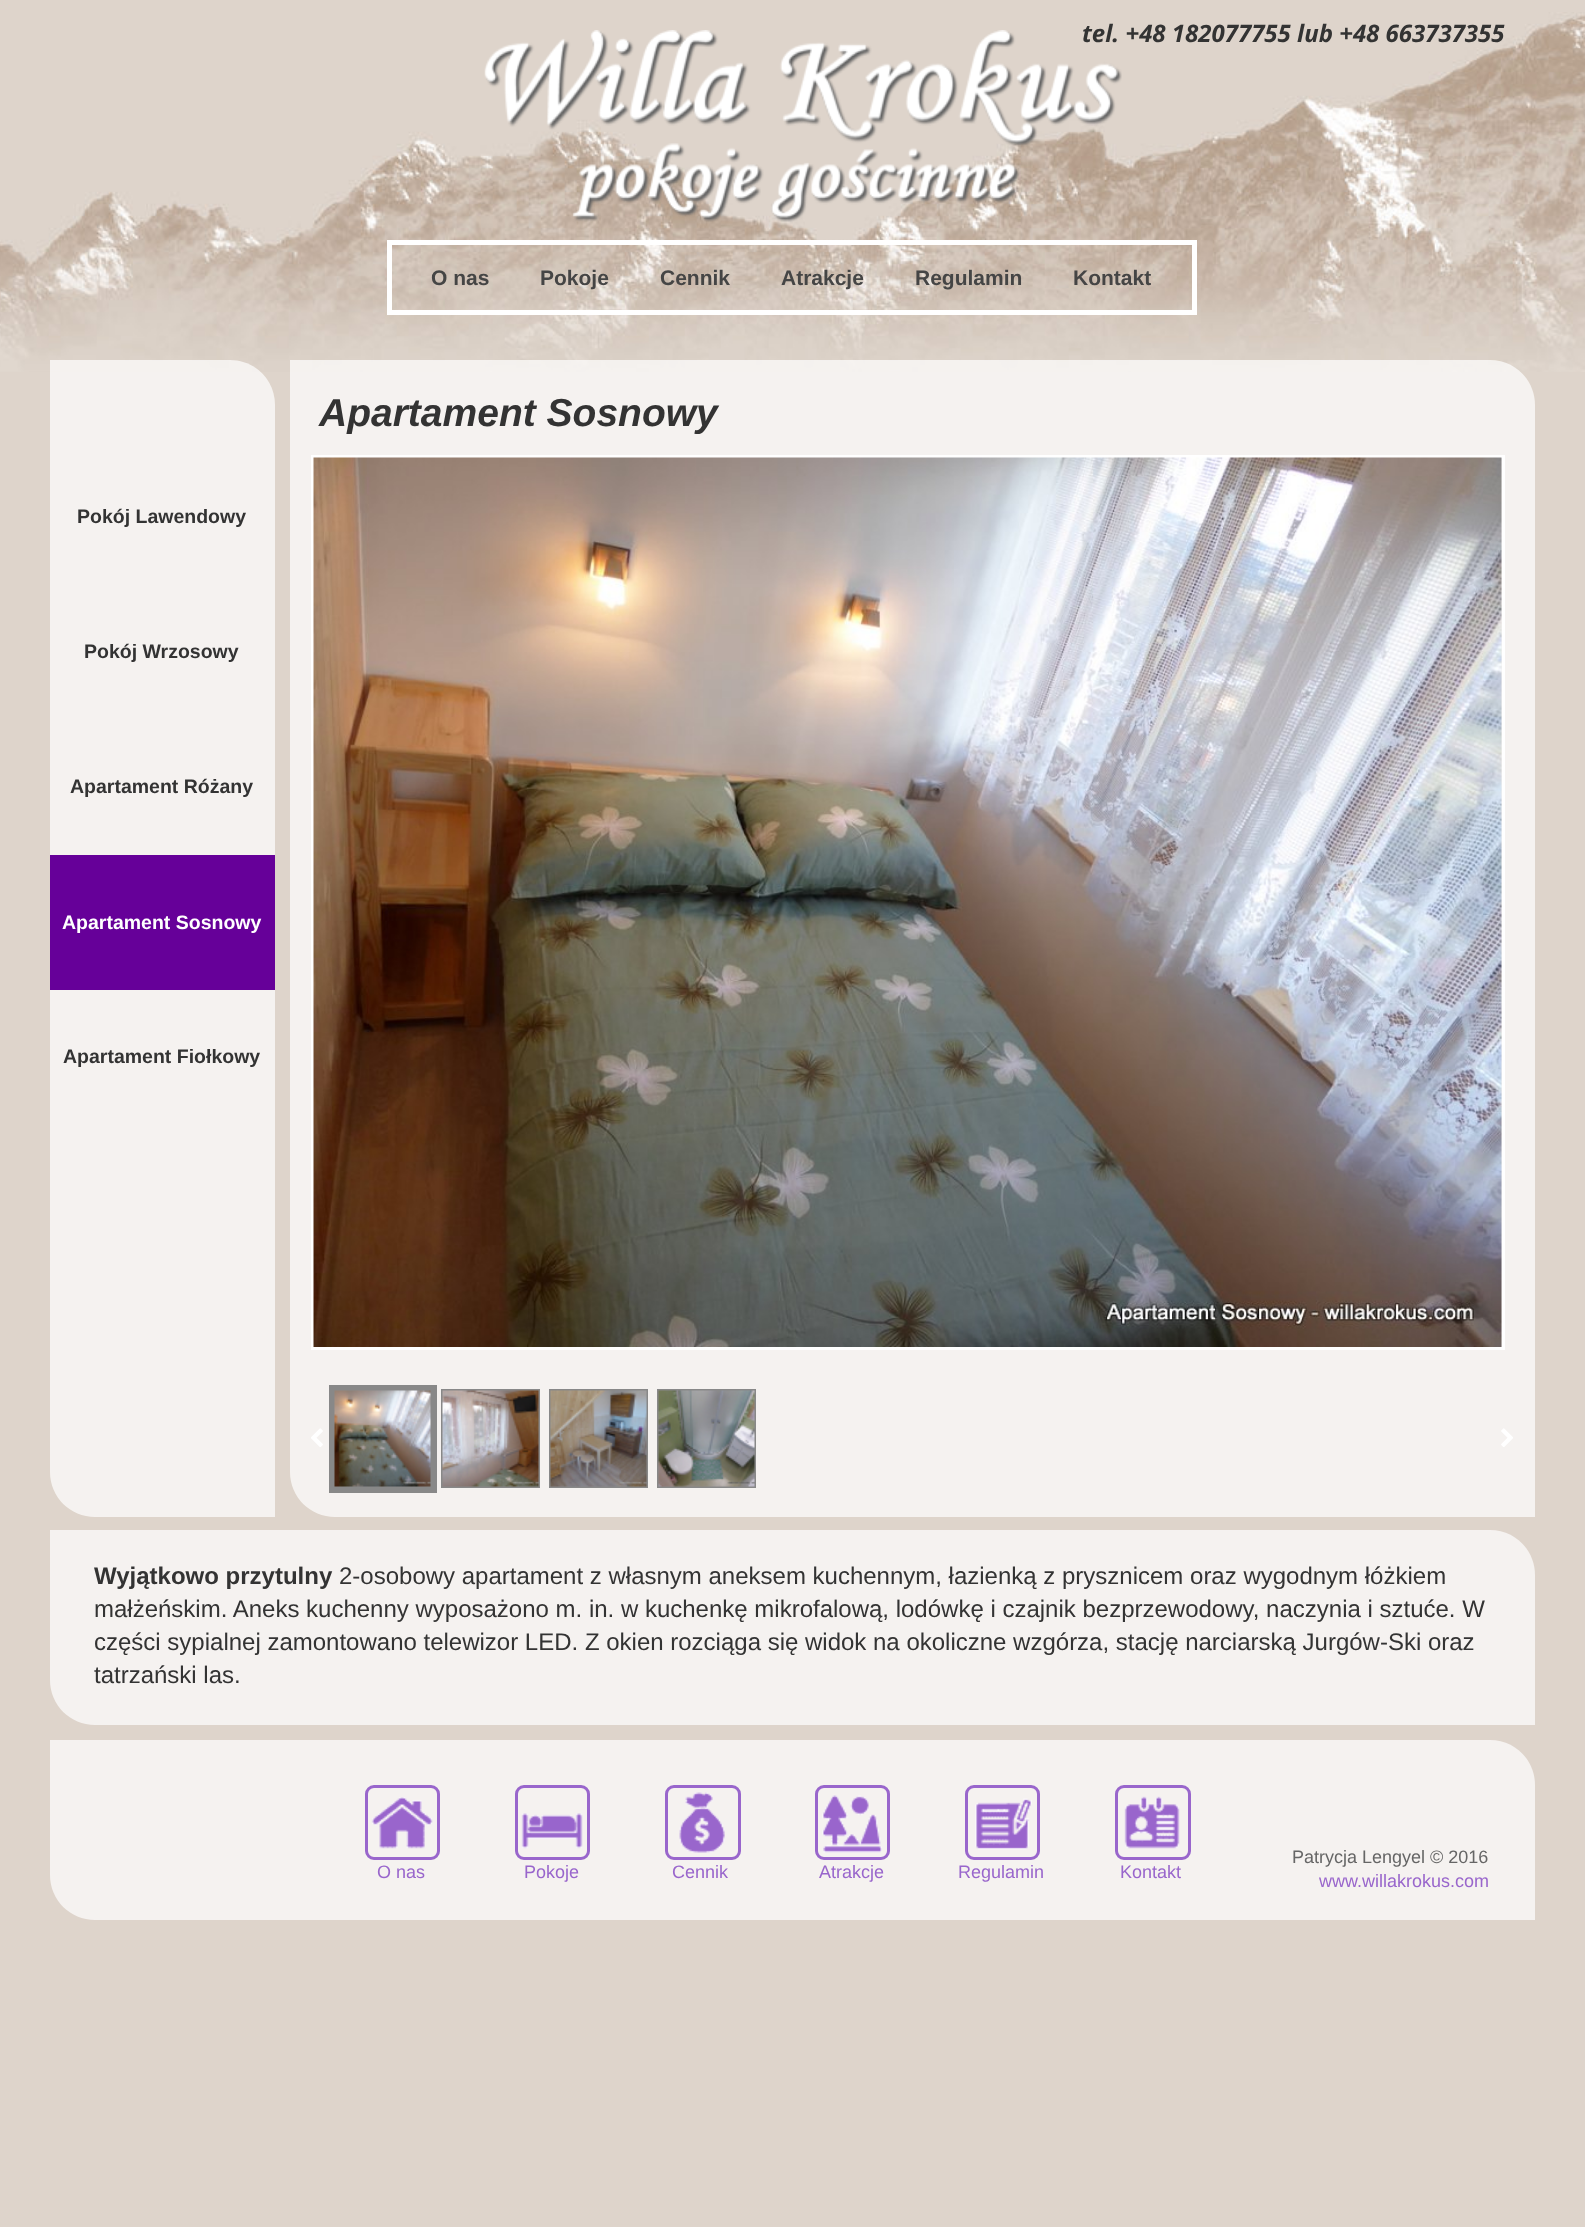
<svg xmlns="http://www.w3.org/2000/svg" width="1585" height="2227">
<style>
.a{font:italic bold 24px Open Sans;fill:#333}
.b{font:bold 21px Liberation Sans;fill:#454545}
.c{font:italic bold 39px Liberation Sans;fill:#333}
.d{font:bold 19.5px Liberation Sans;fill:#333}
.e{font:bold 19.5px Liberation Sans;fill:#fff}
.f{font:bold 24px Liberation Sans;fill:#333}
.g{font:24px Liberation Sans;fill:#333}
.h{font:18px Liberation Sans;fill:#96c}
.i{font:18px Liberation Sans;fill:#666}
</style>
<rect width="100%" height="100%" fill="#ded4cb"/>
<image href="1.png" x="0" y="12" width="1585" height="360"/>
<image href="2.png" x="484" y="30" width="638" height="192"/>
<path fill="none" stroke="#fff" stroke-width="5" d="M389.5 242.5h805v70H389.5z"/>
<path fill="#ffffffb3" d="M50 360h180c25 0 45 20 45 45v1112h-180c-25 0-45-20-45-45z"/>
<path fill="#ffffffb3" d="M290 360h1200c25 0 45 20 45 45v1112h-1200c-25 0-45-20-45-45z"/>
<path fill="none" stroke="#fff" stroke-width="3" d="M312.5 456.5h1191v892H312.5z"/>
<image href="3.png" x="313" y="457" width="1189" height="890"/>
<image href="4.png" x="311" y="1428" width="12" height="19"/>
<path fill="#888" d="M329 1385h108v108H329z"/>
<image href="5.png" x="334" y="1390" width="97" height="97"/>
<path fill="none" stroke="#888" stroke-width="2" d="M442 1390h97v97H442z"/>
<image href="6.png" x="442" y="1390" width="97" height="97"/>
<path fill="none" stroke="#888" stroke-width="2" d="M550 1390h97v97H550z"/>
<image href="7.png" x="550" y="1390" width="97" height="97"/>
<path fill="none" stroke="#888" stroke-width="2" d="M658 1390h97v97H658z"/>
<image href="8.png" x="658" y="1390" width="97" height="97"/>
<image href="9.png" x="1501" y="1428" width="12" height="19"/>
<path fill="#609" d="M50 855h225v135H50z"/>
<path fill="#f5f2f0" d="M50 1530h1440c25 0 45 20 45 45v150h-1440c-25 0-45-20-45-45z"/>
<path fill="#f5f2f0" d="M50 1740h1440c25 0 45 20 45 45v135h-1440c-25 0-45-20-45-45z"/>
<image href="10.png" x="371" y="1797" width="62" height="52"/>
<rect fill="none" stroke="#96c" stroke-width="3" x="366.5" y="1786.5" width="72" height="72" rx="7.5"/>
<image href="11.png" x="521" y="1813" width="62" height="36"/>
<rect fill="none" stroke="#96c" stroke-width="3" x="516.5" y="1786.5" width="72" height="72" rx="7.5"/>
<image href="12.png" x="679" y="1792" width="46" height="61"/>
<rect fill="none" stroke="#96c" stroke-width="3" x="666.5" y="1786.5" width="73" height="72" rx="7.5"/>
<image href="13.png" x="822" y="1795" width="60" height="58"/>
<rect fill="none" stroke="#96c" stroke-width="3" x="816.5" y="1786.5" width="72" height="72" rx="7.5"/>
<image href="14.png" x="975" y="1798" width="57" height="52"/>
<rect fill="none" stroke="#96c" stroke-width="3" x="966.5" y="1786.5" width="72" height="72" rx="7.5"/>
<image href="15.png" x="1124" y="1796" width="56" height="53"/>
<rect fill="none" stroke="#96c" stroke-width="3" x="1116.5" y="1786.5" width="73" height="72" rx="7.5"/>
<text class="a" x="1082" y="42">tel. +48 182077755 lub +48 663737355</text>
<text class="b" x="431" y="285">O nas</text>
<text class="b" x="540" y="285">Pokoje</text>
<text class="b" x="660" y="285">Cennik</text>
<text class="b" x="781" y="285">Atrakcje</text>
<text class="b" x="915" y="285">Regulamin</text>
<text class="b" x="1073" y="285">Kontakt</text>
<text class="c" x="319" y="426">Apartament Sosnowy</text>
<text class="d" x="77" y="523">Pokój Lawendowy</text>
<text class="d" x="84" y="658">Pokój Wrzosowy</text>
<text class="d" x="70" y="793">Apartament Różany</text>
<text class="e" x="62" y="929">Apartament Sosnowy</text>
<text class="d" x="63" y="1063">Apartament Fiołkowy</text>
<text class="f" x="94" y="1584">Wyjątkowo przytulny</text>
<text class="g" x="339" y="1584">2-osobowy apartament z własnym aneksem kuchennym, łazienką z prysznicem oraz wygodnym łóżkiem</text>
<text class="g" x="94" y="1617">małżeńskim. Aneks kuchenny wyposażono m. in. w kuchenkę mikrofalową, lodówkę i czajnik bezprzewodowy, naczynia i sztuće. W</text>
<text class="g" x="94" y="1650">części sypialnej zamontowano telewizor LED. Z okien rozciąga się widok na okoliczne wzgórza, stację narciarską Jurgów-Ski oraz</text>
<text class="g" x="94" y="1683">tatrzański las.</text>
<text class="h" x="377" y="1878">O nas</text>
<text class="h" x="524" y="1878">Pokoje</text>
<text class="h" x="672" y="1878">Cennik</text>
<text class="h" x="819" y="1878">Atrakcje</text>
<text class="h" x="958" y="1878">Regulamin</text>
<text class="h" x="1120" y="1878">Kontakt</text>
<text class="i" x="1292" y="1863">Patrycja Lengyel © 2016</text>
<text class="h" x="1319" y="1887">www.willakrokus.com</text>
</svg>
